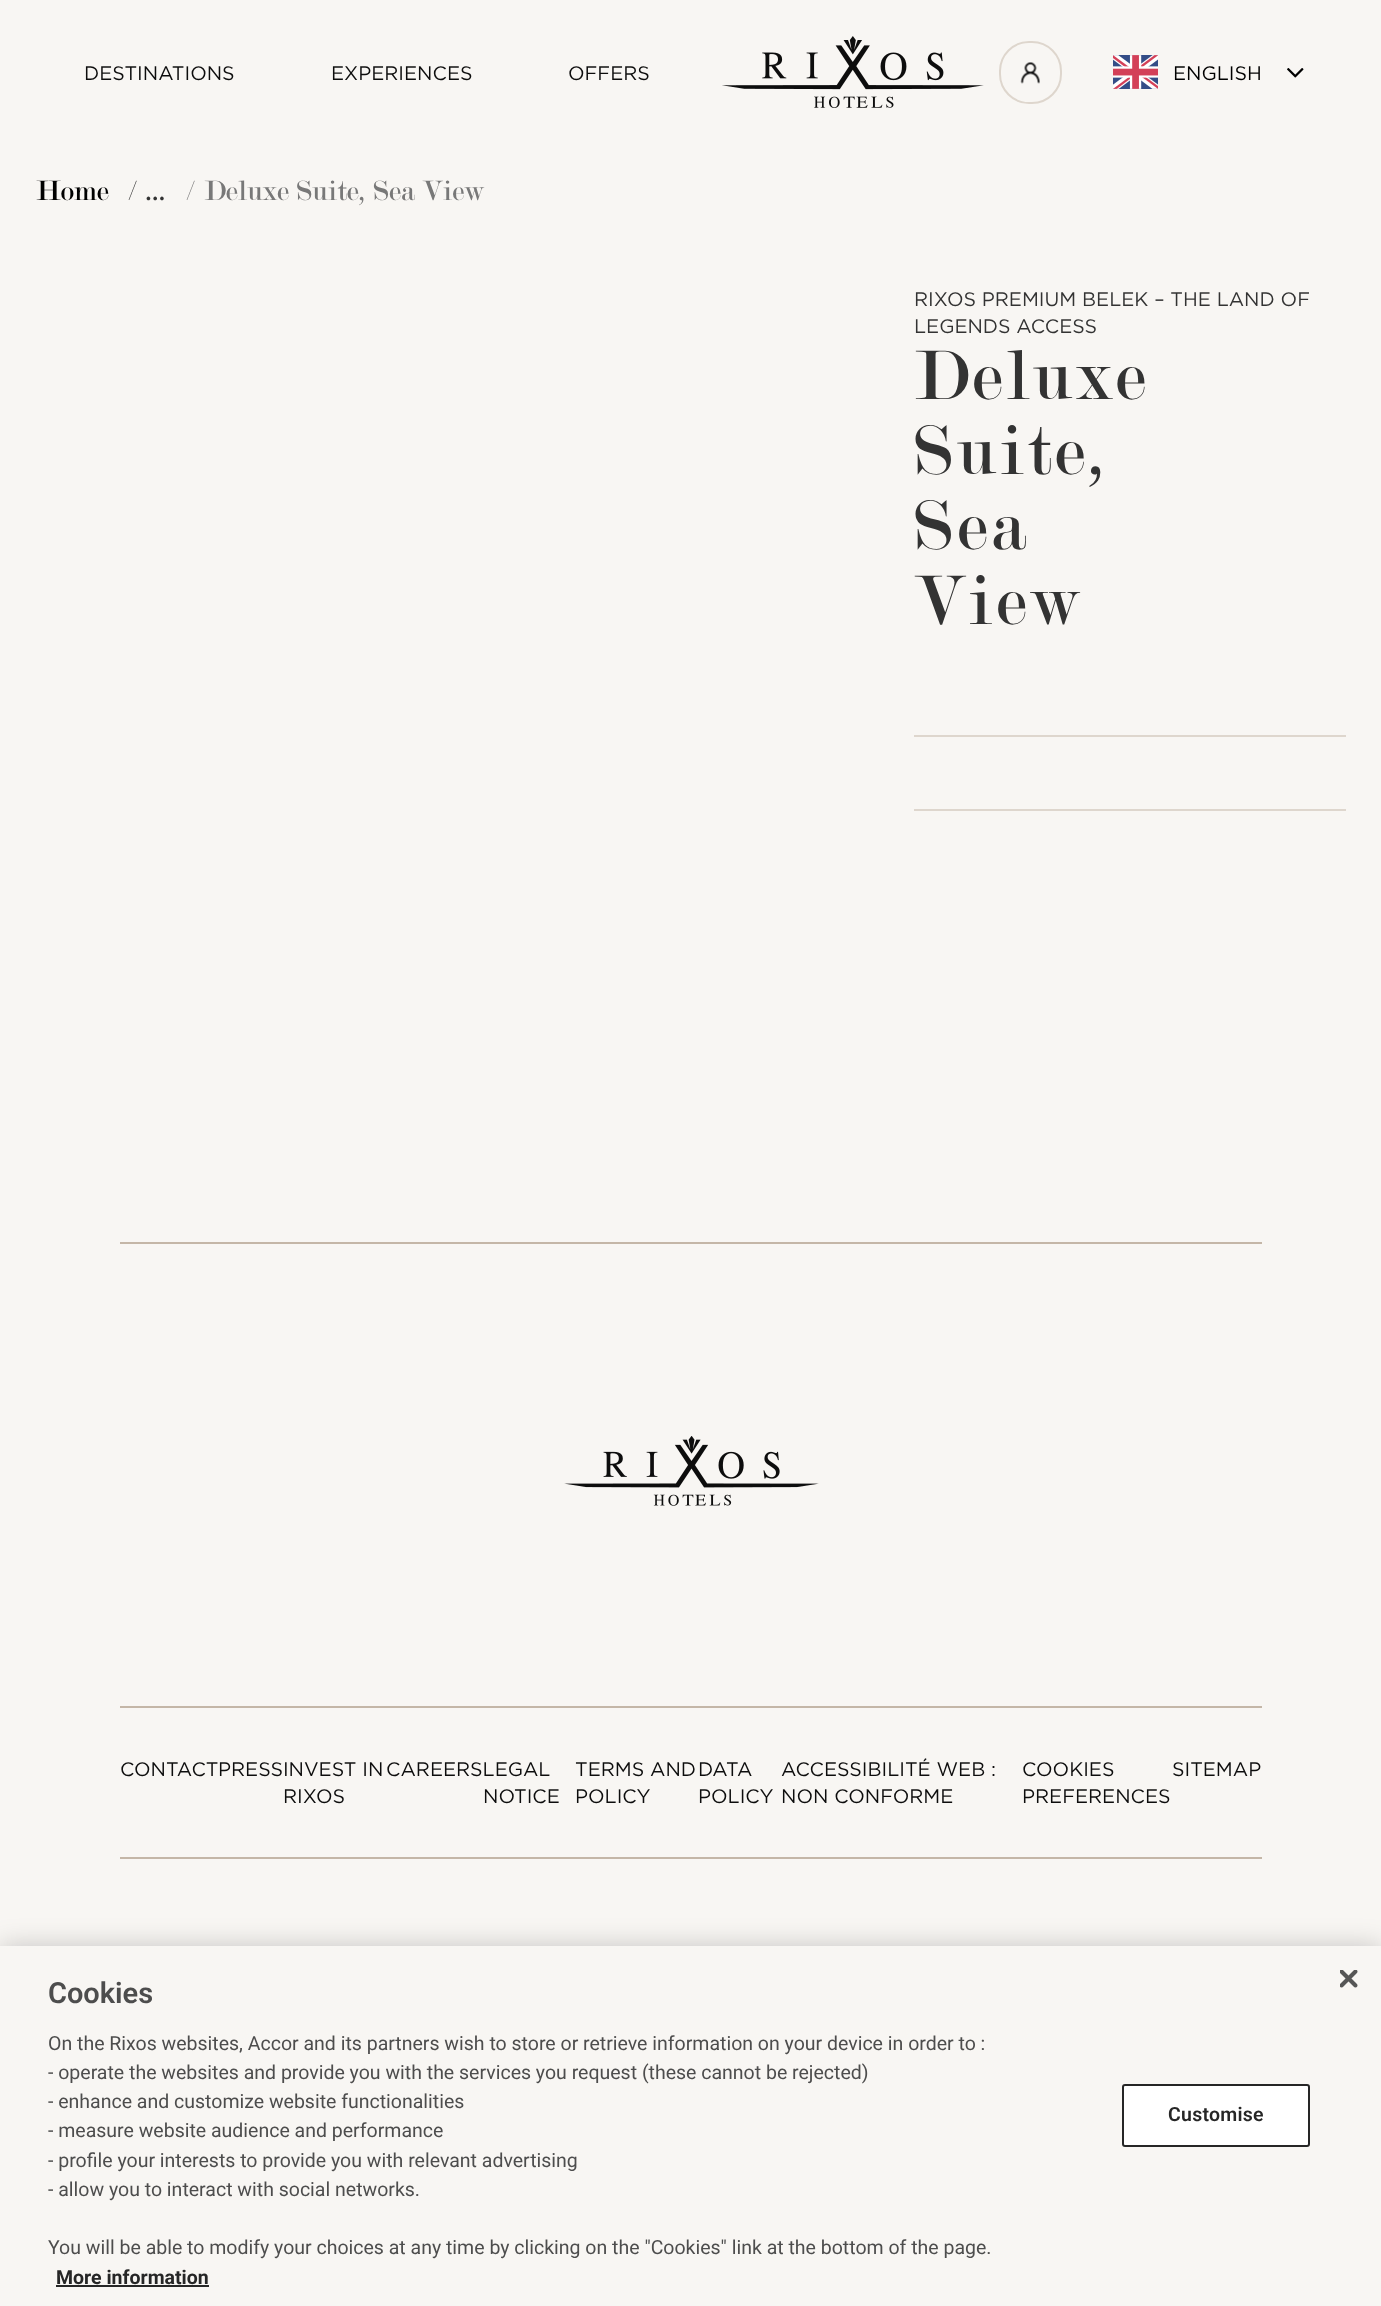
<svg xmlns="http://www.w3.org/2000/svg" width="1381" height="2306">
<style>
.a{font:19.5px Gotham;fill:#0d0d0d}
.b{font:19.5px Gotham;fill:#000}
.c{font:30px 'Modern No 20';fill:#000}
.d{font:30px 'Modern No 20';fill:#333}
.e{font:30px 'Modern No 20';fill:#787878}
.f{font:19.5px Gotham;fill:#333}
.g{font:75px 'Modern No 20';letter-spacing:3.75px;fill:#333}
.h{font:600 29px Roboto;fill:#4d4d4d}
.i{font:19.5px Roboto;fill:#4d4d4d}
.j{font:bold 19.5px Roboto;fill:#262626}
.k{font:600 19.5px Roboto;letter-spacing:0.25px;fill:#262626}
</style>
<rect width="100%" height="100%" fill="#f8f6f3"/>
<image href="1.png" x="722" y="36" width="262" height="72"/>
<rect fill="none" stroke="#ded6cd" stroke-width="2" x="1000" y="42" width="61" height="61" rx="29"/>
<image href="2.png" x="1020" y="62" width="20" height="22"/>
<image href="3.png" x="1113" y="55" width="45" height="34"/>
<image href="4.png" x="1287" y="68" width="17" height="10"/>
<path fill="#ded6cd" d="M914 735h432v2H914z"/>
<path fill="#ded6cd" d="M914 809h432v2H914z"/>
<path fill="#c4b6a7" d="M120 1242h1142v2H120z"/>
<image href="5.png" x="564" y="1436" width="255" height="70"/>
<path fill="#c4b6a7" d="M120 1706h1142v2H120z"/>
<path fill="#c4b6a7" d="M120 1857h1142v2H120z"/>
<path fill="#00000033" filter="blur(13.5px)" d="M0 1946h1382v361H0z"/>
<path fill="#f8f6f3" d="M0 1946h1381v360H0z"/>
<image href="6.png" x="1340" y="1970" width="18" height="18"/>
<path fill="#262626" d="M56 2285h153v2H56z"/>
<rect fill="#fff" stroke="#262626" stroke-width="2" x="1123" y="2085" width="186" height="61" rx="2"/>
<text class="a" x="84" y="80">DESTINATIONS</text>
<text class="a" x="331" y="80">EXPERIENCES</text>
<text class="a" x="568" y="80">OFFERS</text>
<text class="b" x="1173" y="80">ENGLISH</text>
<text class="c" x="36" y="200">Home</text>
<text class="d" x="128" y="200">/</text>
<text class="d" x="146" y="200">...</text>
<text class="e" x="186" y="200">/</text>
<text class="e" x="204" y="200">Deluxe Suite, Sea View</text>
<text class="f" x="914" y="306">RIXOS PREMIUM BELEK – THE LAND OF</text>
<text class="f" x="914" y="333">LEGENDS ACCESS</text>
<text class="g" x="914" y="399">Deluxe</text>
<text class="g" x="914" y="474">Suite,</text>
<text class="g" x="914" y="549">Sea</text>
<text class="g" x="914" y="624">View</text>
<text class="a" x="120" y="1776">CONTACT</text>
<text class="a" x="218" y="1776">PRESSINVEST IN</text>
<text class="a" x="386" y="1776">CAREERSLEGAL</text>
<text class="a" x="575" y="1776">TERMS AND</text>
<text class="a" x="575" y="1803">POLICY</text>
<text class="a" x="698" y="1776">DATA</text>
<text class="a" x="698" y="1803">POLICY</text>
<text class="a" x="781" y="1776">ACCESSIBILITÉ WEB :</text>
<text class="a" x="781" y="1803">NON CONFORME</text>
<text class="a" x="1022" y="1776">COOKIES</text>
<text class="a" x="1022" y="1803">PREFERENCES</text>
<text class="a" x="1172" y="1776">SITEMAP</text>
<text class="a" x="283" y="1803">RIXOS</text>
<text class="a" x="483" y="1803">NOTICE</text>
<text class="h" x="48" y="2003">Cookies</text>
<text class="i" x="48" y="2050">On the Rixos websites, Accor and its partners wish to store or retrieve information on your device in order to :</text>
<text class="i" x="48" y="2079">- operate the websites and provide you with the services you request (these cannot be rejected)</text>
<text class="i" x="48" y="2108">- enhance and customize website functionalities</text>
<text class="i" x="48" y="2137">- measure website audience and performance</text>
<text class="i" x="48" y="2167">- profile your interests to provide you with relevant advertising</text>
<text class="i" x="48" y="2196">- allow you to interact with social networks.</text>
<text class="i" x="48" y="2254">You will be able to modify your choices at any time by clicking on the "Cookies" link at the bottom of the page.</text>
<text class="j" x="56" y="2284">More information</text>
<text class="k" x="1168" y="2121">Customise</text>
</svg>
